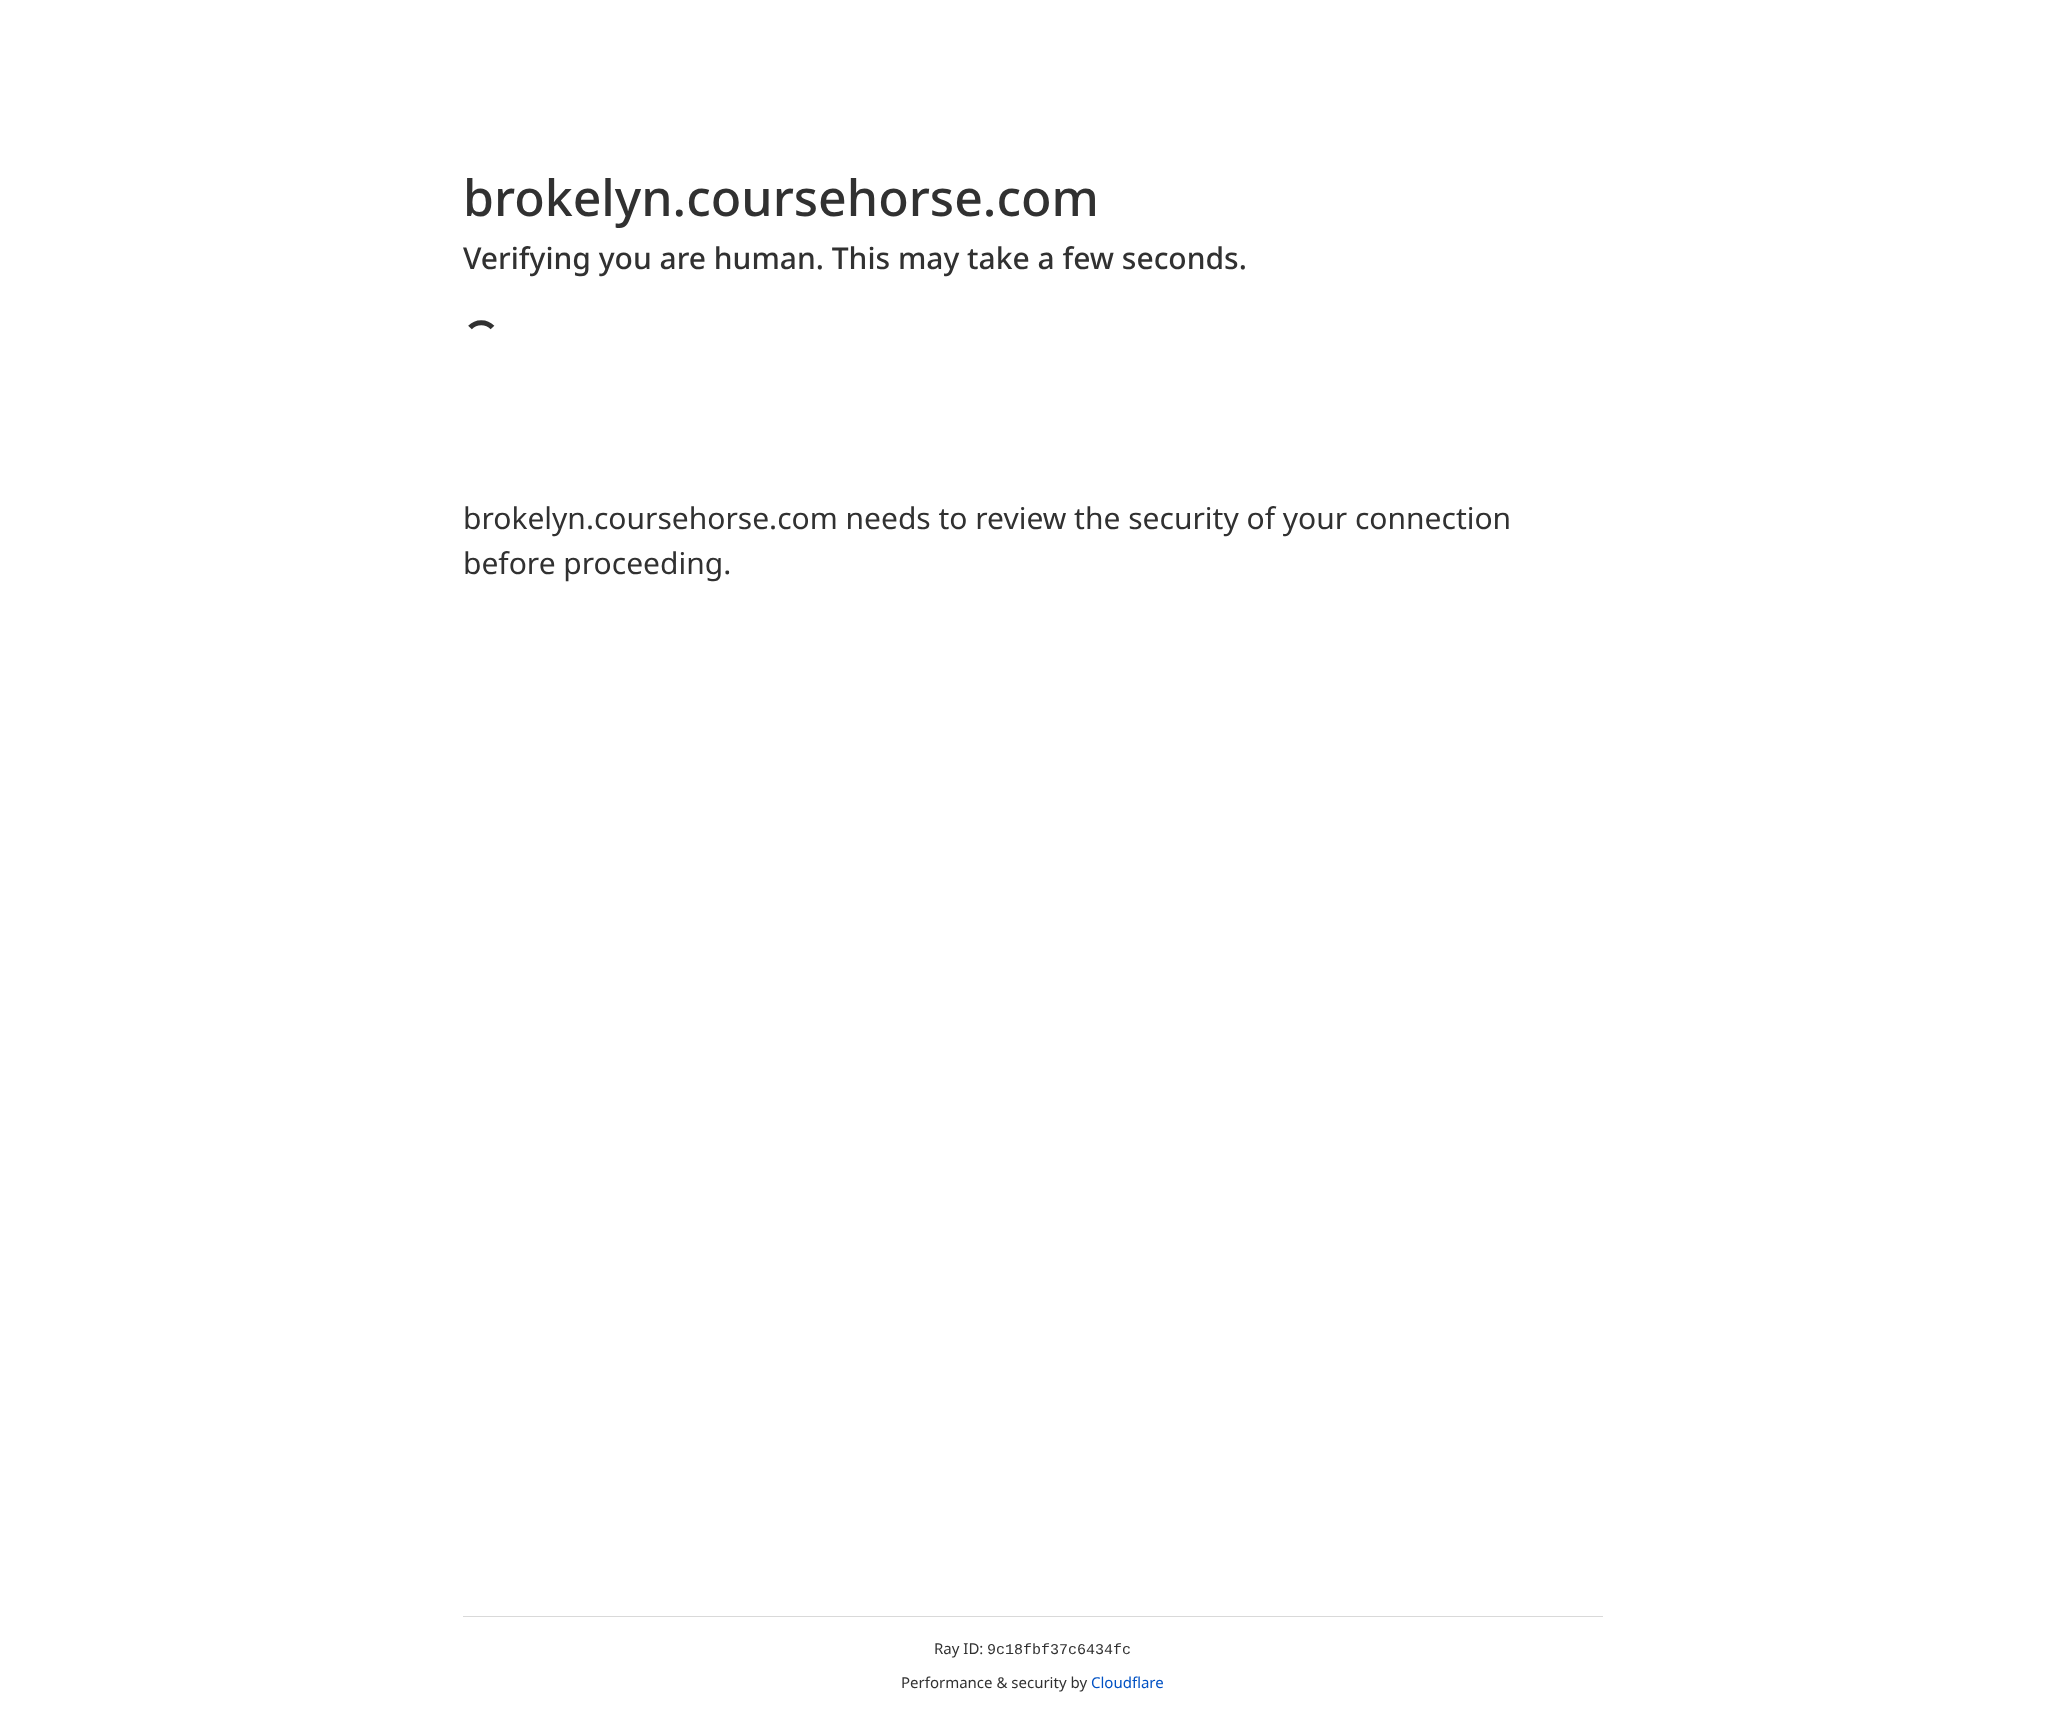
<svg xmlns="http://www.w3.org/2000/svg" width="2064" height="1713">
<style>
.a{font:500 50px Noto Sans;fill:#313131}
.b{font:500 30px Noto Sans;fill:#313131}
.c{font:30px Noto Sans;fill:#313131}
.d{font:15px Noto Sans;fill:#313131}
.e{font:15px Liberation Mono;fill:#313131}
.f{font:15px Noto Sans;fill:#0051c3}
</style>
<rect width="100%" height="100%" fill="#fff"/>
<path fill="none" stroke="#313131" stroke-width="5" d="M470 327.5c6-6.5 16.5-6.5 22.5 0m-22.5 0c6-6.5 16.5-6.5 22.5 0m-22.5 0c6-6.5 16.5-6.5 22.5 0m-22.5 0c6-6.5 16.5-6.5 22.5 0"/>
<path fill="#d9d9d9" d="M463 1616h1140v1H463z"/>
<text class="a" x="463" y="216">brokelyn.coursehorse.com</text>
<text class="b" x="463" y="269">Verifying you are human. This may take a few seconds.</text>
<text class="c" x="463" y="529">brokelyn.coursehorse.com needs to review the security of your connection</text>
<text class="c" x="463" y="574">before proceeding.</text>
<text class="d" x="934" y="1654">Ray ID:</text>
<text class="e" x="987" y="1654">9c18fbf37c6434fc</text>
<text class="d" x="901" y="1688">Performance &amp; security by</text>
<text class="f" x="1091" y="1688">Cloudflare</text>
</svg>
